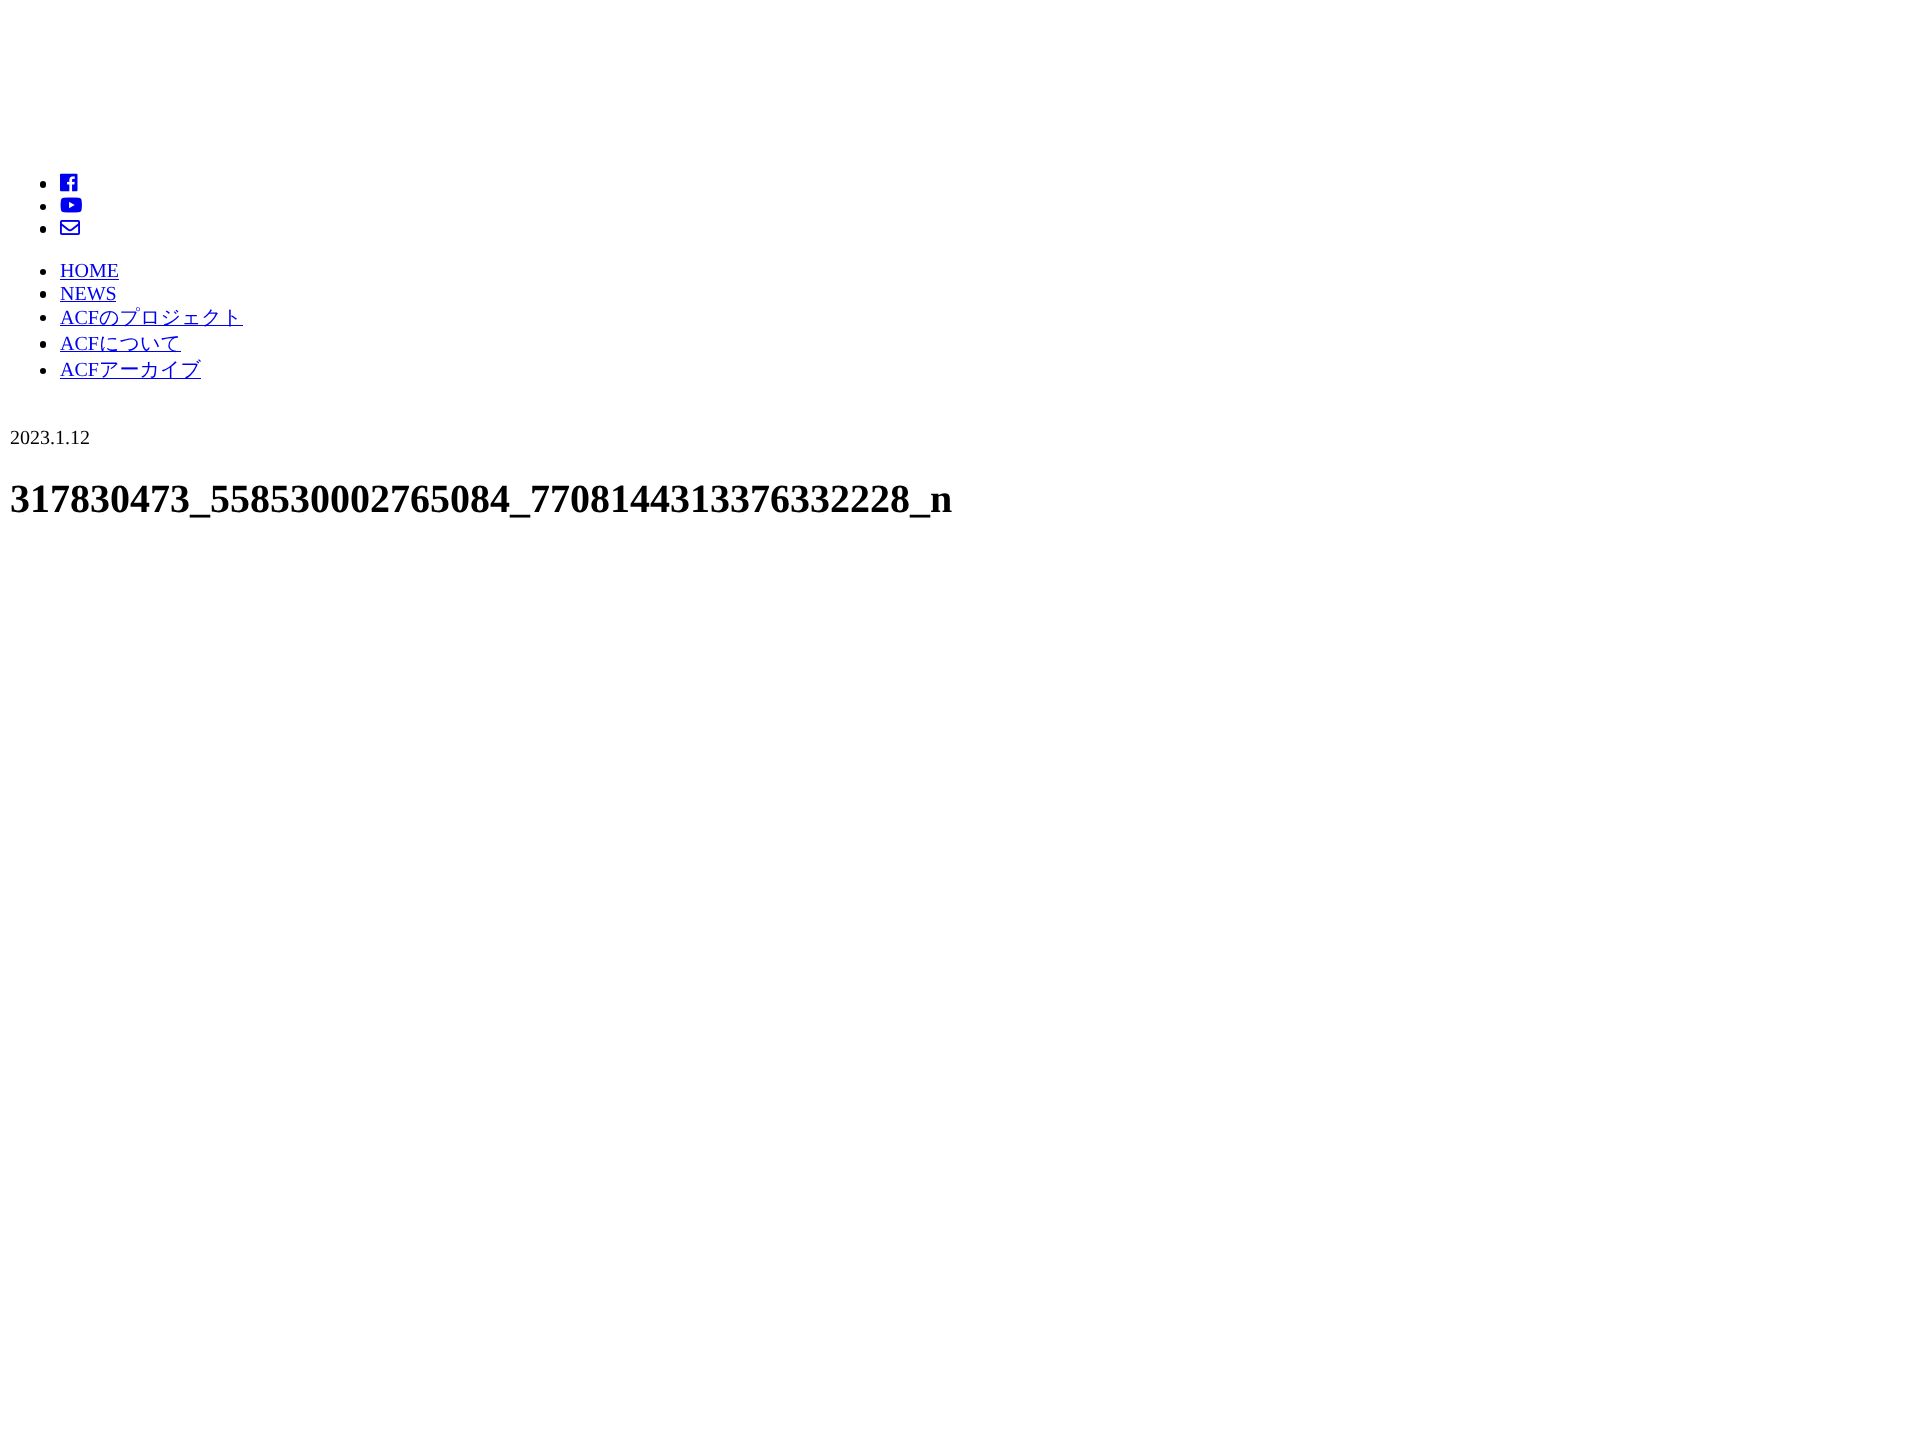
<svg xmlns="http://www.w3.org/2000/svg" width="1908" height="1431">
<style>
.a{font:20px Liberation Serif;fill:#00e}
.b{font:500 20px WenQuanYi Zen Hei;fill:#00e}
.c{font:20px Liberation Serif;fill:#000}
.d{font:bold 40px Liberation Serif;fill:#000}
</style>
<rect width="100%" height="100%" fill="#fff"/>
<rect fill="#000" x="40" y="181" width="6" height="7" rx="3"/>
<image href="1.png" x="60" y="173" width="18" height="19"/>
<circle fill="#000" cx="43" cy="207" r="3"/>
<image href="2.png" x="60" y="197" width="22" height="16"/>
<rect fill="#000" x="40" y="226" width="6" height="7" rx="3"/>
<image href="3.png" x="60" y="220" width="20" height="15"/>
<circle fill="#000" cx="43" cy="272" r="3"/>
<path fill="#00e" d="M60 279h59v1H60z"/>
<rect fill="#000" x="40" y="291" width="6" height="7" rx="3"/>
<path fill="#00e" d="M60 301h56v1H60z"/>
<circle fill="#000" cx="43" cy="318" r="3"/>
<path fill="#00e" d="M60 325h183v1H60z"/>
<rect fill="#000" x="40" y="341" width="6" height="7" rx="3"/>
<path fill="#00e" d="M60 351h121v1H60z"/>
<circle fill="#000" cx="43" cy="371" r="3"/>
<path fill="#00e" d="M60 378h141v1H60z"/>
<text class="a" x="60" y="277">HOME</text>
<text class="a" x="60" y="300">NEWS</text>
<text class="a" x="60" y="324">ACF</text>
<text class="b" x="99" y="324">のプロジェクト</text>
<text class="a" x="60" y="350">ACF</text>
<text class="b" x="99" y="350">について</text>
<text class="a" x="60" y="376">ACF</text>
<text class="b" x="99" y="376">アーカイブ</text>
<text class="c" x="10" y="444">2023.1.12</text>
<text class="d" x="10" y="512">317830473_558530002765084_7708144313376332228_n</text>
</svg>
